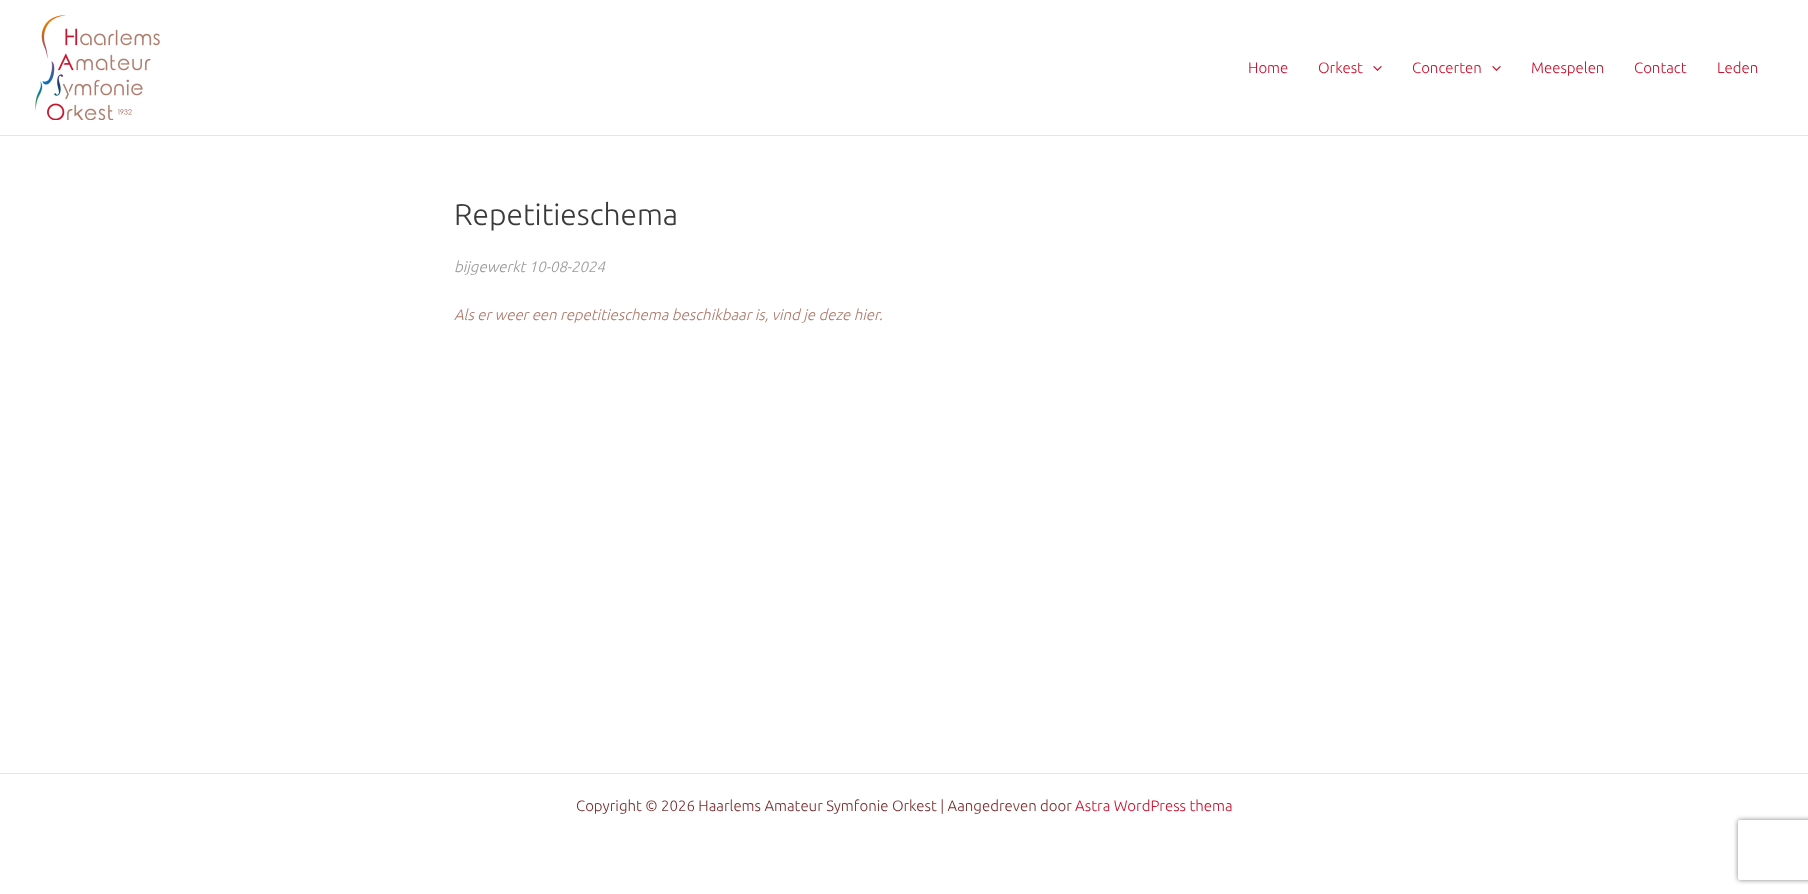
<svg xmlns="http://www.w3.org/2000/svg" width="1808" height="894">
<style>
.a{font:300 15px Ubuntu;fill:#c6142f}
.b{font:300 30px Ubuntu;fill:#3a3a3a}
.c{font:italic 300 15px Ubuntu;fill:#999}
.d{font:italic 300 15px Ubuntu;fill:#ad7b6c}
.e{font:300 15px Ubuntu;fill:#772e2e}
</style>
<defs>
<clipPath id="clip1"><path d="M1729 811h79v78h-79zm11 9h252c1 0 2 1 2 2v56c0 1-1 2-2 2h-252c-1 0-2-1-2-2v-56c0-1 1-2 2-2z" clip-rule="evenodd"/></clipPath>
</defs>
<rect width="100%" height="100%" fill="#fff"/>
<path fill="#e5e5e5" d="M0 135h1808v1H0z"/>
<image href="1.png" x="35" y="15" width="125" height="105"/>
<image href="2.png" x="1373" y="66" width="9" height="5"/>
<image href="2.png" x="1492" y="66" width="9" height="5"/>
<path fill="#e5e5e5" d="M0 773h1808v1H0z"/>
<g clip-path="url(#clip1)">
<rect fill="#808080" filter="blur(2.5px)" x="1738" y="820" width="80" height="60" rx="2"/>
</g>
<text class="a" x="1248" y="73">Home</text>
<text class="a" x="1318" y="73">Orkest</text>
<text class="a" x="1412" y="73">Concerten</text>
<text class="a" x="1531" y="73">Meespelen</text>
<text class="a" x="1634" y="73">Contact</text>
<text class="a" x="1717" y="73">Leden</text>
<text class="b" x="454" y="225">Repetitieschema</text>
<text class="c" x="454" y="272">bijgewerkt 10-08-2024</text>
<text class="d" x="454" y="320">Als er weer een repetitieschema beschikbaar is, vind je deze hier.</text>
<text class="e" x="576" y="811">Copyright © 2026 Haarlems Amateur Symfonie Orkest | Aangedreven door</text>
<text class="a" x="1075" y="811">Astra WordPress thema</text>
</svg>
